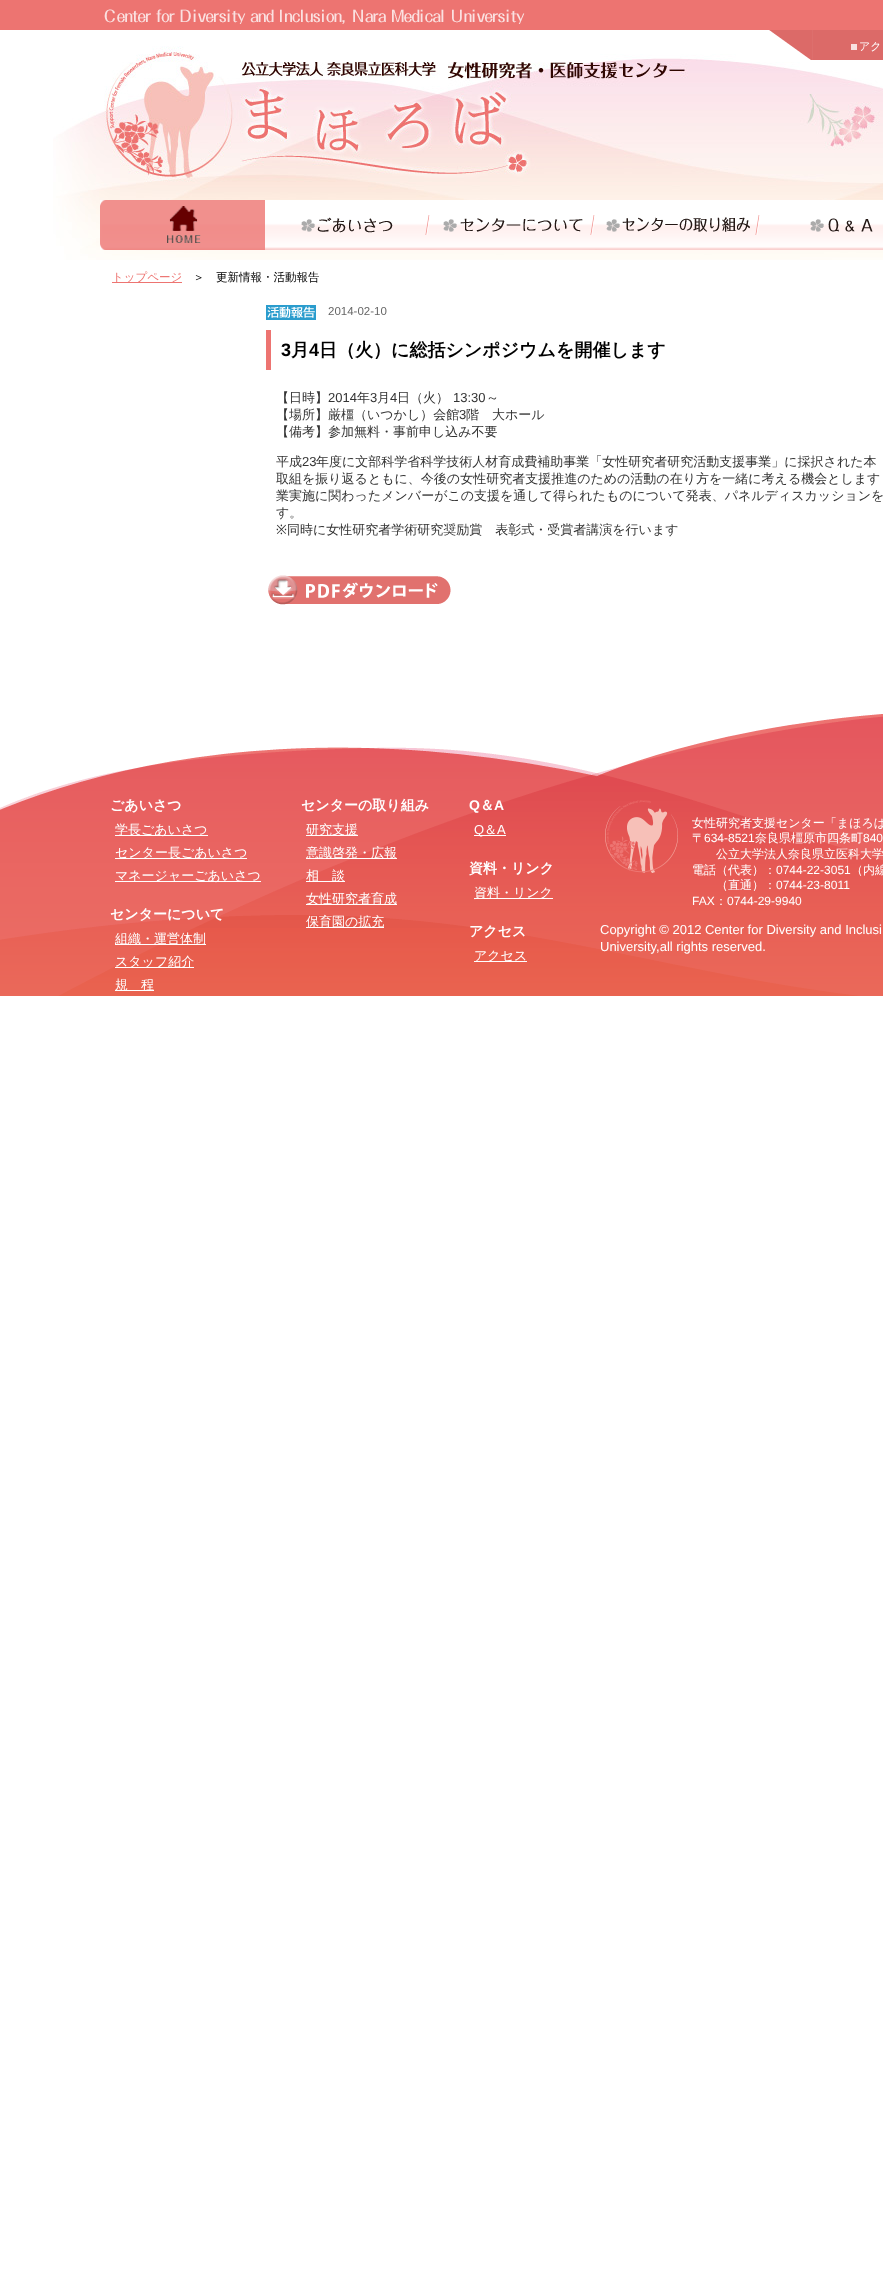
<svg xmlns="http://www.w3.org/2000/svg" width="883" height="2284">
<style>
.a{font:500 11px WenQuanYi Zen Hei;fill:#fff}
.b{font:500 11.5px WenQuanYi Zen Hei;fill:#ed7471}
.c{font:500 11.5px WenQuanYi Zen Hei;fill:#000}
.d{font:11.5px Liberation Sans;fill:#666}
.e{font:bold 18px Liberation Sans;fill:#000}
.f{font:bold 18px WenQuanYi Zen Hei;fill:#000}
.g{font:500 13px WenQuanYi Zen Hei;fill:#333}
.h{font:13px Liberation Sans;fill:#333}
.i{font:13px Noto Sans;fill:#333}
.j{font:bold 14px WenQuanYi Zen Hei;fill:#fff}
.k{font:500 13px WenQuanYi Zen Hei;fill:#fff}
.l{font:bold 14px Liberation Sans;fill:#fff}
.m{font:13px Liberation Sans;fill:#fff}
.n{font:500 12px WenQuanYi Zen Hei;fill:#fff}
.o{font:12px Liberation Sans;fill:#fff}
</style>
<rect width="100%" height="100%" fill="#fff"/>
<path fill="#ed7471" d="M0 0h883v30H0z"/>
<image href="1.png" x="53" y="46" width="830" height="214"/>
<image href="2.png" x="104" y="9" width="421" height="15"/>
<image href="3.png" x="769" y="30" width="114" height="30"/>
<path fill="#f8e1e1" d="M851 44h6v6H851z"/>
<image href="4.png" x="265" y="200" width="618" height="18"/>
<image href="5.png" x="100" y="200" width="165" height="50"/>
<image href="6.png" x="265" y="215" width="165" height="35"/>
<image href="7.png" x="430" y="215" width="165" height="35"/>
<image href="8.png" x="595" y="215" width="165" height="35"/>
<image href="9.png" x="760" y="218" width="123" height="32"/>
<path fill="#ed7471" d="M112 282h70v1H112z"/>
<image href="10.png" x="266" y="305" width="50" height="15"/>
<path fill="#ed7471" d="M266 330h5v40H266z"/>
<image href="11.png" x="268" y="575" width="183" height="30"/>
<image href="12.png" x="0" y="714" width="883" height="282"/>
<path fill="#fff" d="M115 835h93v1H115z"/>
<path fill="#fff" d="M115 858h132v1H115z"/>
<path fill="#fff" d="M115 881h146v1H115z"/>
<path fill="#fff" d="M115 944h91v1H115z"/>
<path fill="#fff" d="M115 967h79v1H115z"/>
<path fill="#fff" d="M115 990h39v1H115z"/>
<path fill="#fff" d="M306 835h52v1H306z"/>
<path fill="#fff" d="M306 858h91v1H306z"/>
<path fill="#fff" d="M306 881h39v1H306z"/>
<path fill="#fff" d="M306 904h91v1H306z"/>
<path fill="#fff" d="M306 927h78v1H306z"/>
<path fill="#fff" d="M474 835h32v1H474z"/>
<path fill="#fff" d="M474 898h79v1H474z"/>
<path fill="#fff" d="M474 961h53v1H474z"/>
<image href="13.png" x="605" y="800" width="73" height="73"/>
<text class="a" x="859" y="50">アク</text>
<text class="b" x="112" y="281">トップページ</text>
<text class="c" x="193" y="281">＞</text>
<text class="c" x="216" y="281">更新情報・活動報告</text>
<text class="d" x="328" y="315">2014-02-10</text>
<text class="e" x="281" y="356">3</text>
<text class="f" x="291" y="356">月</text>
<text class="e" x="309" y="356">4</text>
<text class="f" x="319" y="356">日（火）に総括シンポジウムを開催します</text>
<text class="g" x="276" y="402">【日時】</text>
<text class="h" x="328" y="402">2014</text>
<text class="g" x="357" y="402">年</text>
<text class="h" x="370" y="402">3</text>
<text class="g" x="377" y="402">月</text>
<text class="h" x="390" y="402">4</text>
<text class="g" x="397" y="402">日（火）</text>
<text class="h" x="453" y="402">13:30</text>
<text class="g" x="486" y="402">～</text>
<text class="g" x="276" y="419">【場所】厳橿（いつかし）会館</text>
<text class="h" x="459" y="419">3</text>
<text class="g" x="466" y="419">階　大ホール</text>
<text class="g" x="276" y="436">【備考】参加無料・事前申し込み不要</text>
<text class="g" x="276" y="466">平成</text>
<text class="h" x="302" y="466">23</text>
<text class="g" x="316" y="466">年度に文部科学省科学技術人材育成費補助事業「女性研究者研究活動支援事業」に採択された本</text>
<text class="g" x="276" y="483">取組を振り返るともに、今後の女性研究者支援推進のための活動の在り方を一緒に考える機会とします</text>
<text class="g" x="276" y="500">業実施に関わったメンバーがこの支援を通して得られたものについて発表、パネルディスカッションを</text>
<text class="g" x="276" y="517">す。</text>
<text class="i" x="276" y="534">※</text>
<text class="g" x="287" y="534">同時に女性研究者学術研究奨励賞　表彰式・受賞者講演を行います</text>
<text class="j" x="110" y="810">ごあいさつ</text>
<text class="k" x="115" y="834">学長ごあいさつ</text>
<text class="k" x="115" y="857">センター長ごあいさつ</text>
<text class="k" x="115" y="880">マネージャーごあいさつ</text>
<text class="j" x="110" y="919">センターについて</text>
<text class="k" x="115" y="943">組織・運営体制</text>
<text class="k" x="115" y="966">スタッフ紹介</text>
<text class="k" x="115" y="989">規　程</text>
<text class="j" x="301" y="810">センターの取り組み</text>
<text class="k" x="306" y="834">研究支援</text>
<text class="k" x="306" y="857">意識啓発・広報</text>
<text class="k" x="306" y="880">相　談</text>
<text class="k" x="306" y="903">女性研究者育成</text>
<text class="k" x="306" y="926">保育園の拡充</text>
<text class="l" x="469" y="810">Q</text>
<text class="j" x="480" y="810">＆</text>
<text class="l" x="494" y="810">A</text>
<text class="m" x="474" y="834">Q</text>
<text class="k" x="484" y="834">＆</text>
<text class="m" x="497" y="834">A</text>
<text class="j" x="469" y="873">資料・リンク</text>
<text class="k" x="474" y="897">資料・リンク</text>
<text class="j" x="469" y="936">アクセス</text>
<text class="k" x="474" y="960">アクセス</text>
<text class="n" x="692" y="827">女性研究者支援センター「まほろば</text>
<text class="n" x="692" y="842">〒</text>
<text class="o" x="704" y="842">634-8521</text>
<text class="n" x="755" y="842">奈良県橿原市四条町</text>
<text class="o" x="863" y="842">840</text>
<text class="n" x="716" y="858">公立大学法人奈良県立医科大学</text>
<text class="n" x="692" y="874">電話（代表）：</text>
<text class="o" x="776" y="874">0744-22-3051</text>
<text class="n" x="851" y="874">（内線</text>
<text class="n" x="716" y="889">（直通）：</text>
<text class="o" x="776" y="889">0744-23-8011</text>
<text class="o" x="692" y="905">FAX</text>
<text class="n" x="715" y="905">：</text>
<text class="o" x="727" y="905">0744-29-9940</text>
<text class="m" x="600" y="934">Copyright © 2012 Center for Diversity and Inclusi</text>
<text class="m" x="600" y="951">University,all rights reserved.</text>
</svg>
